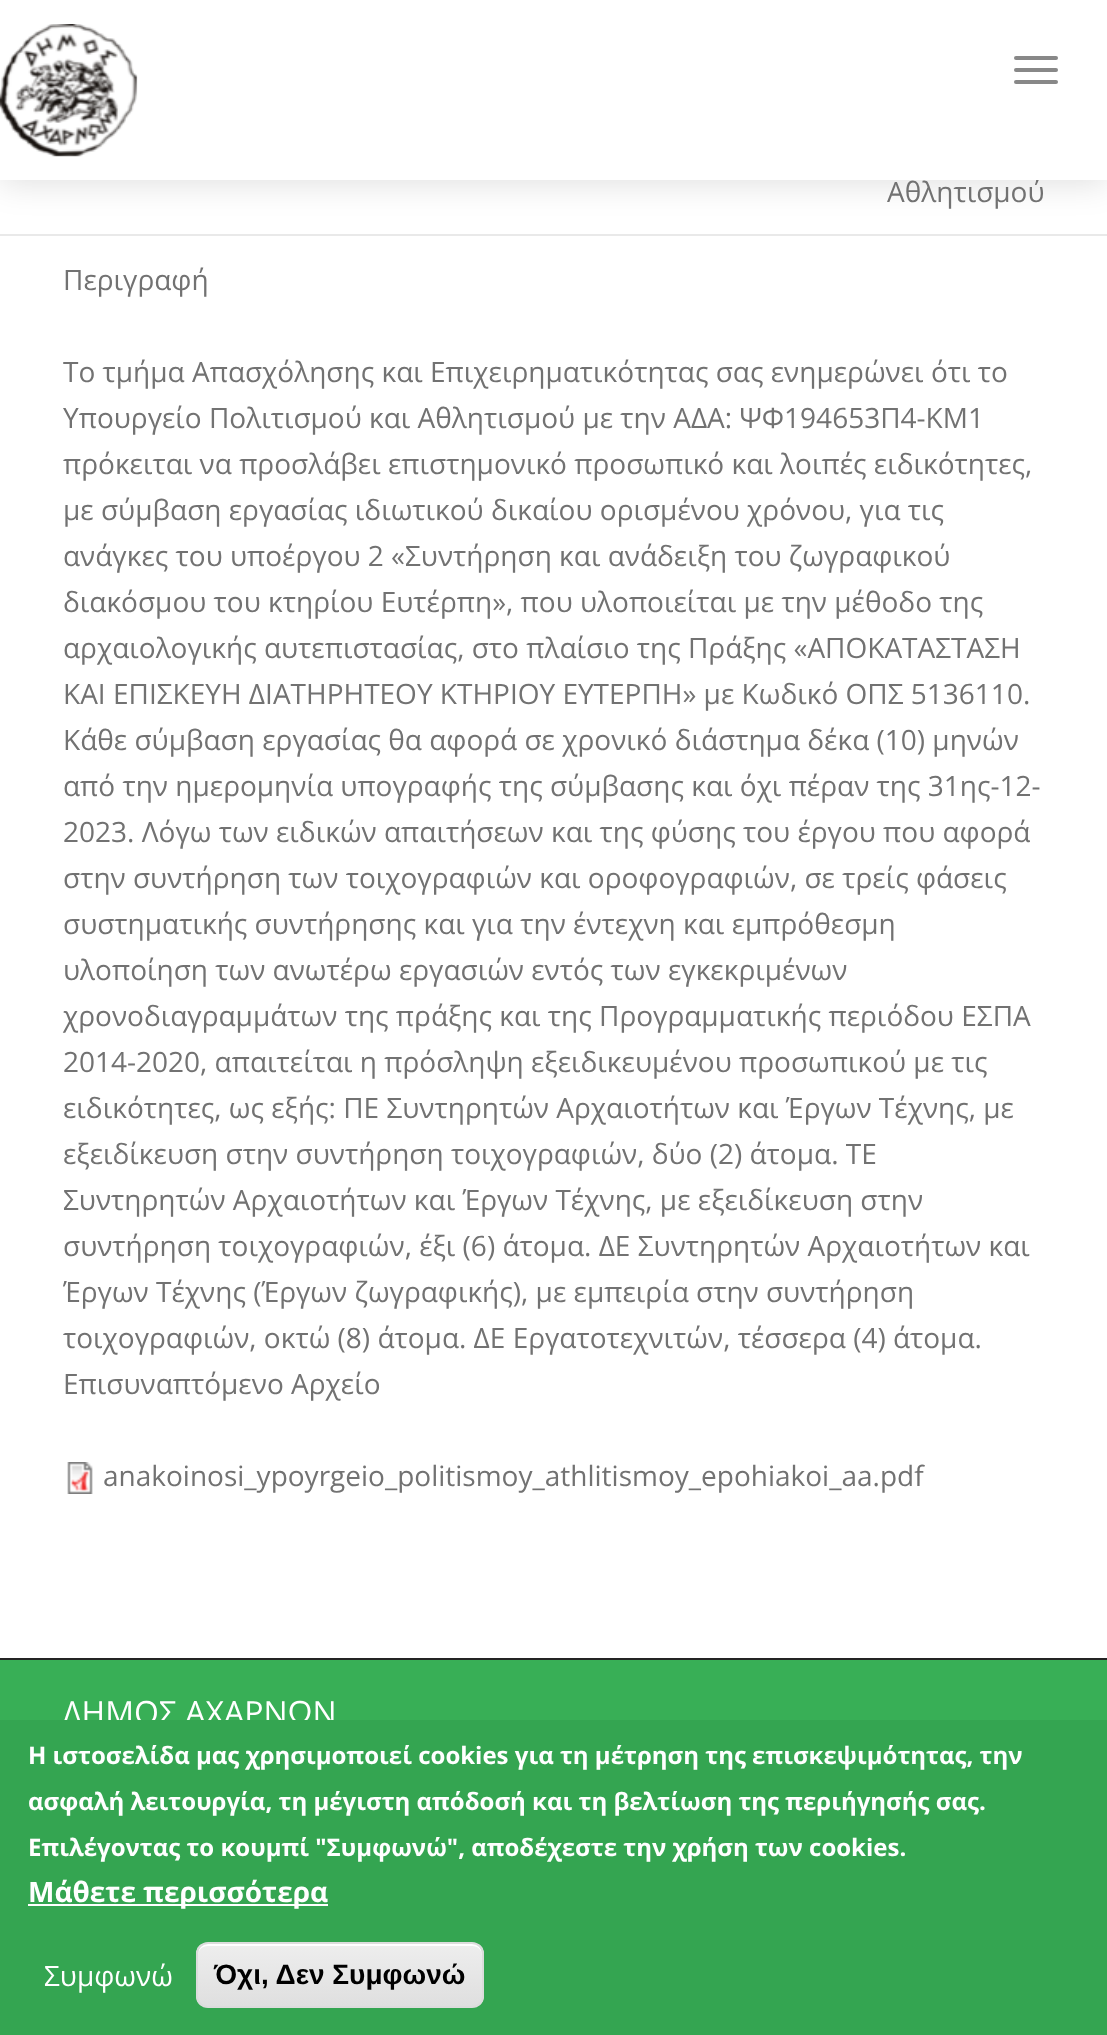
<svg xmlns="http://www.w3.org/2000/svg" width="1107" height="2035">
<style>
.a{font:28px Open Sans;fill:#727272}
.b{font:32px Open Sans;fill:#fff}
.c{font:bold 24px Open Sans;fill:#fff}
.d{font:bold 28px Open Sans;fill:#fff}
.e{font:28px Open Sans;fill:#fff}
.f{font:bold 28px Liberation Sans;fill:#000}
</style>
<defs>
<clipPath id="clip1"><rect x="196" y="1942" width="288" height="66" rx="12"/></clipPath>
<linearGradient id="g1" gradientUnits="userSpaceOnUse" x1="340" y1="1944" x2="340" y2="2006"><stop offset="0.05" stop-color="#ededed"/><stop offset="1" stop-color="#dfdfdf"/></linearGradient>
</defs>
<rect width="100%" height="100%" fill="#fff"/>
<path fill="#0000001f" filter="blur(16px)" d="M0 4h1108v180H0z"/>
<path fill="#e9e9e9" d="M0 234h1107v2H0z"/>
<image href="2.png" x="67" y="1462" width="26" height="32"/>
<path fill="#38af56" d="M0 1660h1107v60H0z"/>
<path fill="#242424" d="M0 1658h1107v2H0z"/>
<text class="a" x="887" y="202">Αθλητισμού</text>
<path fill="#fff" d="M0 0h1107v180H0z"/>
<rect fill="#888" x="1014" y="80" width="44" height="4" rx="2"/>
<rect fill="#888" x="1014" y="68" width="44" height="4" rx="2"/>
<rect fill="#888" x="1014" y="56" width="44" height="4" rx="2"/>
<image href="1.png" x="0" y="24" width="138" height="133"/>
<text class="a" x="63" y="290">Περιγραφή</text>
<text class="a" x="63" y="382">Το τμήμα Απασχόλησης και Επιχειρηματικότητας σας ενημερώνει ότι το</text>
<text class="a" x="63" y="428">Υπουργείο Πολιτισμού και Αθλητισμού με την ΑΔΑ: ΨΦ194653Π4-ΚΜ1</text>
<text class="a" x="63" y="474">πρόκειται να προσλάβει επιστημονικό προσωπικό και λοιπές ειδικότητες,</text>
<text class="a" x="63" y="520">με σύμβαση εργασίας ιδιωτικού δικαίου ορισμένου χρόνου, για τις</text>
<text class="a" x="63" y="566">ανάγκες του υποέργου 2 «Συντήρηση και ανάδειξη του ζωγραφικού</text>
<text class="a" x="63" y="612">διακόσμου του κτηρίου Ευτέρπη», που υλοποιείται με την μέθοδο της</text>
<text class="a" x="63" y="658">αρχαιολογικής αυτεπιστασίας, στο πλαίσιο της Πράξης «ΑΠΟΚΑΤΑΣΤΑΣΗ</text>
<text class="a" x="63" y="704">ΚΑΙ ΕΠΙΣΚΕΥΗ ΔΙΑΤΗΡΗΤΕΟΥ ΚΤΗΡΙΟΥ ΕΥΤΕΡΠΗ» με Κωδικό ΟΠΣ 5136110.</text>
<text class="a" x="63" y="750">Κάθε σύμβαση εργασίας θα αφορά σε χρονικό διάστημα δέκα (10) μηνών</text>
<text class="a" x="63" y="796">από την ημερομηνία υπογραφής της σύμβασης και όχι πέραν της 31ης-12-</text>
<text class="a" x="63" y="842">2023. Λόγω των ειδικών απαιτήσεων και της φύσης του έργου που αφορά</text>
<text class="a" x="63" y="888">στην συντήρηση των τοιχογραφιών και οροφογραφιών, σε τρείς φάσεις</text>
<text class="a" x="63" y="934">συστηματικής συντήρησης και για την έντεχνη και εμπρόθεσμη</text>
<text class="a" x="63" y="980">υλοποίηση των ανωτέρω εργασιών εντός των εγκεκριμένων</text>
<text class="a" x="63" y="1026">χρονοδιαγραμμάτων της πράξης και της Προγραμματικής περιόδου ΕΣΠΑ</text>
<text class="a" x="63" y="1072">2014-2020, απαιτείται η πρόσληψη εξειδικευμένου προσωπικού με τις</text>
<text class="a" x="63" y="1118">ειδικότητες, ως εξής: ΠΕ Συντηρητών Αρχαιοτήτων και Έργων Τέχνης, με</text>
<text class="a" x="63" y="1164">εξειδίκευση στην συντήρηση τοιχογραφιών, δύο (2) άτομα. ΤΕ</text>
<text class="a" x="63" y="1210">Συντηρητών Αρχαιοτήτων και Έργων Τέχνης, με εξειδίκευση στην</text>
<text class="a" x="63" y="1256">συντήρηση τοιχογραφιών, έξι (6) άτομα. ΔΕ Συντηρητών Αρχαιοτήτων και</text>
<text class="a" x="63" y="1302">Έργων Τέχνης (Έργων ζωγραφικής), με εμπειρία στην συντήρηση</text>
<text class="a" x="63" y="1348">τοιχογραφιών, οκτώ (8) άτομα. ΔΕ Εργατοτεχνιτών, τέσσερα (4) άτομα.</text>
<text class="a" x="63" y="1394">Επισυναπτόμενο Αρχείο</text>
<text class="a" x="103" y="1486">anakoinosi_ypoyrgeio_politismoy_athlitismoy_epohiakoi_aa.pdf</text>
<text class="b" x="63" y="1724">ΔΗΜΟΣ ΑΧΑΡΝΩΝ</text>
<path fill="#34a551" d="M0 1720h1107v315H0z"/>
<text class="c" x="28" y="1764">Η ιστοσελίδα μας χρησιμοποιεί cookies για τη μέτρηση της επισκεψιμότητας, την</text>
<text class="c" x="28" y="1810">ασφαλή λειτουργία, τη μέγιστη απόδοσή και τη βελτίωση της περιήγησής σας.</text>
<text class="c" x="28" y="1856">Επιλέγοντας το κουμπί "Συμφωνώ", αποδέχεστε την χρήση των cookies.</text>
<path fill="#fff" d="M28 1904h300v2H28z"/>
<text class="d" x="28" y="1902">Μάθετε περισσότερα</text>
<text class="e" x="44" y="1986">Συμφωνώ</text>
<g clip-path="url(#clip1)">
<path fill="url(#g1)" d="M196 1944h288v62H196z"/>
</g>
<path fill="#fff" d="M208 1946h264c6 0 10 4 10 10v-2c0-6-4-10-10-10h-264c-6 0-10 4-10 10v2c0-6 4-10 10-10z"/>
<rect fill="none" stroke="#dcdcdc" stroke-width="2" x="197" y="1943" width="286" height="64" rx="11"/>
<text class="f" x="214" y="1984">Όχι, Δεν Συμφωνώ</text>
</svg>
